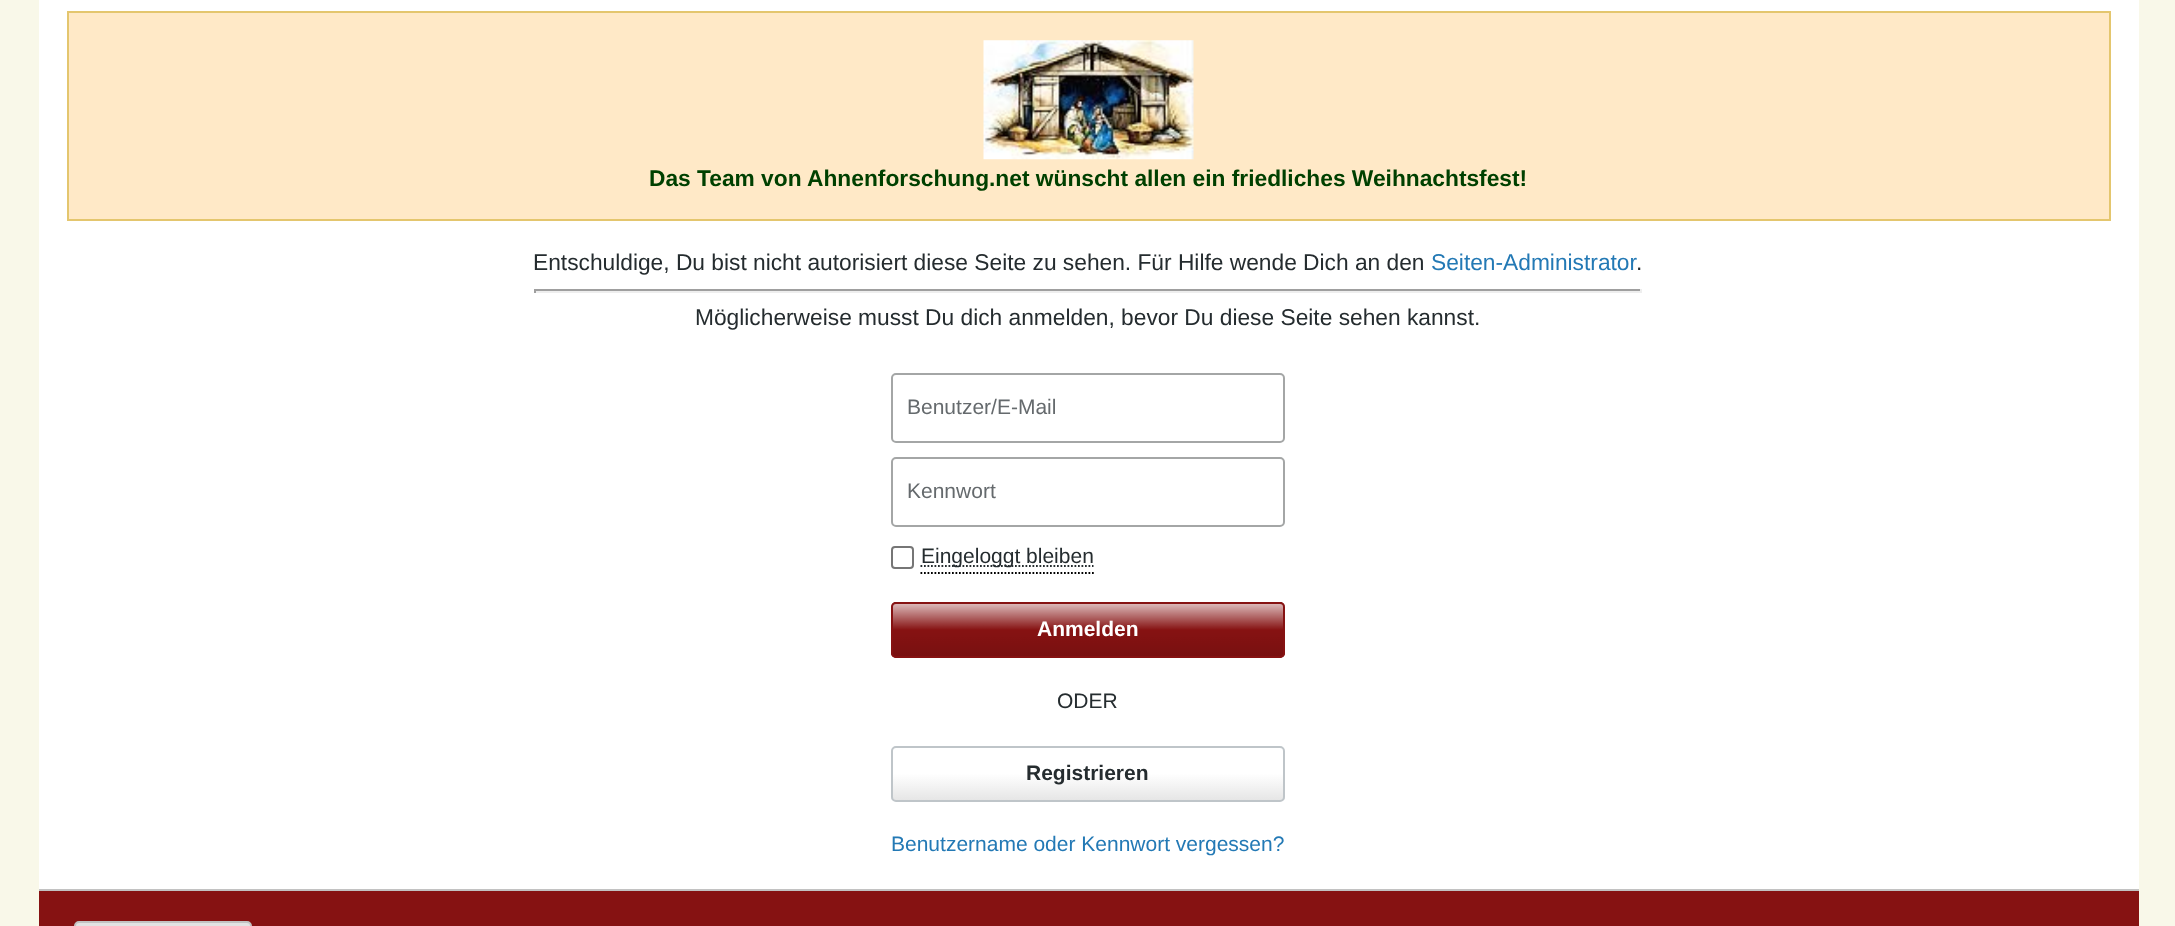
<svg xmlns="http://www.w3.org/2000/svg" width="2175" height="926">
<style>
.a{font:bold 22.75px Liberation Sans;fill:#004000}
.b{font:22.75px Liberation Sans;fill:#252c2f}
.c{font:22.75px Liberation Sans;fill:#2379b5}
.d{font:21px Liberation Sans;fill:#656a6d}
.e{font:21px Liberation Sans;fill:#252c2f}
.f{font:bold 21px Liberation Sans;fill:#fff}
.g{font:bold 21px Liberation Sans;fill:#252c2f}
.h{font:21px Liberation Sans;fill:#2379b5}
</style>
<defs>
<clipPath id="clip1"><rect x="891" y="602" width="394" height="56" rx="5"/></clipPath>
<linearGradient id="g1" gradientUnits="userSpaceOnUse" x1="1088" y1="656" x2="1088" y2="604"><stop offset="0" stop-color="#000" stop-opacity="0.1"/><stop offset="0.5" stop-color="#000" stop-opacity="0"/><stop offset="0.5" stop-color="#fff" stop-opacity="0"/><stop offset="1" stop-color="#fff" stop-opacity="0.7"/></linearGradient>
<clipPath id="clip2"><rect x="891" y="746" width="394" height="56" rx="5"/></clipPath>
<linearGradient id="g2" gradientUnits="userSpaceOnUse" x1="1088" y1="800" x2="1088" y2="747"><stop offset="0" stop-color="#e6e6e6"/><stop offset="0.5" stop-color="#fff"/><stop offset="1" stop-color="#fff"/></linearGradient>
</defs>
<rect width="100%" height="100%" fill="#f9f8e9"/>
<path fill="#fff" d="M39 0h2100v889H39z"/>
<path fill="#ffe9c7" stroke="#e4c66e" stroke-width="2" d="M68 12h2042v208H68z"/>
<image href="1.png" x="983" y="40" width="211" height="120"/>
<path fill="#9f9f9f" d="M534 289h1108v2H534z"/>
<path fill="#eee" d="M1640 289h2v4H1640z"/>
<path fill="#eee" d="M534 291h1108v2H534z"/>
<path fill="#9f9f9f" d="M534 289h2v4H534z"/>
<rect fill="none" stroke="#a4a6a6" stroke-width="2" x="892" y="374" width="392" height="68" rx="4"/>
<rect fill="none" stroke="#a4a6a6" stroke-width="2" x="892" y="458" width="392" height="68" rx="4"/>
<rect fill="none" stroke="#767676" stroke-width="2" x="892" y="547" width="21" height="21" rx="3"/>
<path fill="none" stroke="#000" stroke-width="1.8" stroke-dasharray="1.75 1.75" d="M920.5 573h173.5"/>
<path fill="none" stroke="#252c2f" stroke-width="1.8" stroke-dasharray="1.75 1.75" d="M920.5 566h173"/>
<rect fill="#861212" x="891" y="602" width="394" height="56" rx="5"/>
<g clip-path="url(#clip1)">
<path fill="url(#g1)" d="M891 604h394v52H891z"/>
</g>
<rect fill="none" stroke="#861212" stroke-width="2" x="892" y="603" width="392" height="54" rx="4"/>
<g clip-path="url(#clip2)">
<path fill="url(#g2)" d="M891 747h394v53H891z"/>
</g>
<rect fill="none" stroke="#bfc5c9" stroke-width="2" x="892" y="747" width="392" height="54" rx="4"/>
<path fill="#861212" d="M39 891h2100v35H39z"/>
<path fill="#c2c2c2" d="M39 889h2100v2H39z"/>
<rect fill="#e2e3e3" stroke="#c2c2c2" stroke-width="2" x="75" y="922" width="176" height="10" rx="4"/>
<text class="a" x="649" y="186">Das Team von Ahnenforschung.net wünscht allen ein friedliches Weihnachtsfest!</text>
<text class="b" x="533" y="270">Entschuldige, Du bist nicht autorisiert diese Seite zu sehen. Für Hilfe wende Dich an den</text>
<text class="c" x="1431" y="270">Seiten-Administrator</text>
<text class="b" x="1636" y="270">.</text>
<text class="b" x="695" y="325">Möglicherweise musst Du dich anmelden, bevor Du diese Seite sehen kannst.</text>
<text class="d" x="907" y="414">Benutzer/E-Mail</text>
<text class="d" x="907" y="498">Kennwort</text>
<text class="e" x="921" y="563">Eingeloggt bleiben</text>
<text class="f" x="1037" y="636">Anmelden</text>
<text class="e" x="1057" y="708">ODER</text>
<text class="g" x="1026" y="780">Registrieren</text>
<text class="h" x="891" y="851">Benutzername oder Kennwort vergessen?</text>
</svg>
